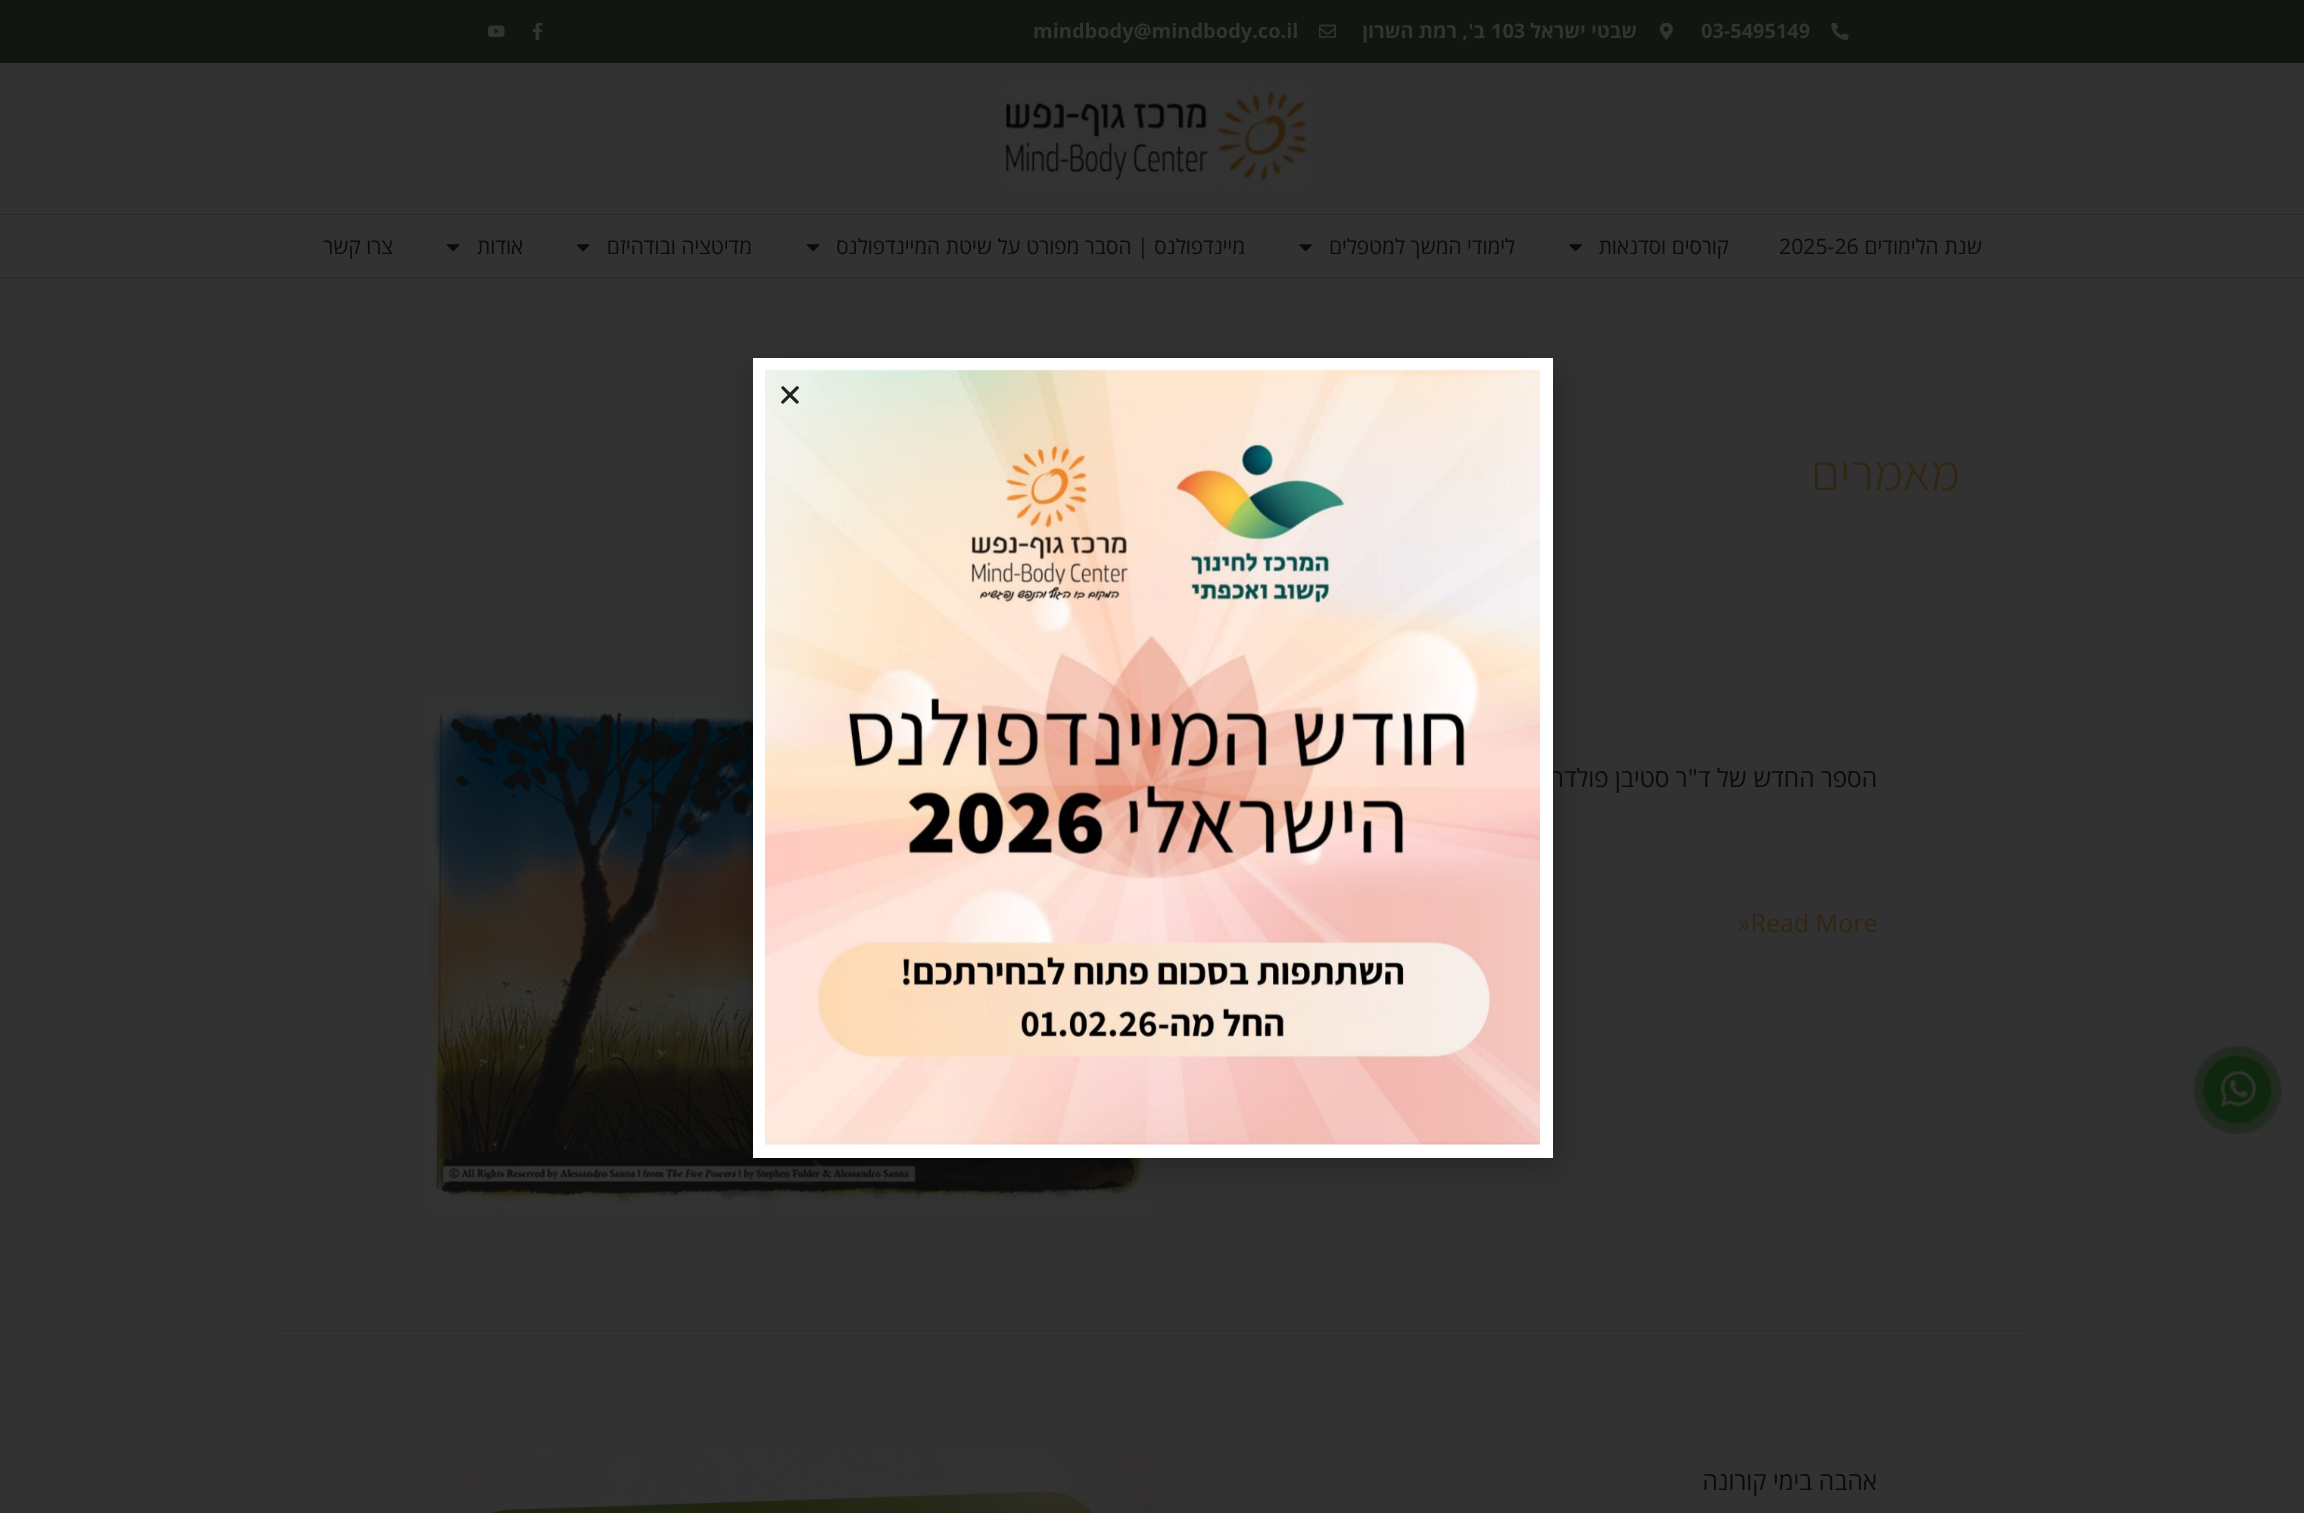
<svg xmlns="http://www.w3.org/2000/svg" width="2304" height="1513">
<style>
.a{font:bold 20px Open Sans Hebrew;fill:#333}
.b{font:bold 20px Open Sans Hebrew;direction:rtl;fill:#333}
.c{font:21.25px Open Sans Hebrew;direction:rtl;fill:#0c0c0c}
.d{font:21.25px Open Sans Hebrew;fill:#0c0c0c}
.e{font:300 50px Assistant;direction:rtl;fill:#312611}
.f{font:25px Open Sans Hebrew;direction:rtl;fill:#0c0c0c}
.g{font:25px Open Sans Hebrew;fill:#312611}
</style>
<rect width="100%" height="100%" fill="#323232"/>
<path fill="#111610" d="M0 0h2304v63H0z"/>
<image href="1.png" x="1831" y="23" width="18" height="17"/>
<image href="2.png" x="1659" y="23" width="14" height="17"/>
<image href="3.png" x="1319" y="24" width="17" height="14"/>
<image href="4.png" x="532" y="23" width="11" height="17"/>
<image href="5.png" x="488" y="25" width="17" height="13"/>
<image href="6.png" x="1005" y="85" width="304" height="101"/>
<path fill="none" stroke="#1c1c1c" stroke-width="1.2" stroke-dasharray="1.25 1.25" d="M0 214.5h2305"/>
<path fill="none" stroke="#1c1c1c" stroke-width="1.2" stroke-dasharray="1.25 1.25" d="M0 278h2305"/>
<image href="7.png" x="1569" y="244" width="13" height="8"/>
<image href="7.png" x="1299" y="244" width="13" height="8"/>
<image href="8.png" x="807" y="244" width="13" height="8"/>
<image href="8.png" x="577" y="244" width="13" height="8"/>
<image href="8.png" x="447" y="244" width="13" height="8"/>
<image href="9.png" x="2192" y="1045" width="91" height="90"/>
<path fill="#2c2c2c" d="M278 1330h1750v1H278z"/>
<image href="10.png" x="427" y="699" width="726" height="511"/>
<image href="11.png" x="428" y="1452" width="725" height="61"/>
<path fill="#00000033" filter="blur(14.5px)" d="M751 364h808v807H751z"/>
<text class="a" x="1701" y="38">03-5495149</text>
<text class="b" x="1637" y="38">שבטי ישראל</text>
<text class="a" x="1491" y="38">103</text>
<text class="b" x="1485" y="38">ב', רמת השרון</text>
<text class="a" x="1033" y="38">mindbody@mindbody.co.il</text>
<text class="c" x="1982" y="254">שנת הלימודים</text>
<text class="d" x="1779" y="254">2025-26</text>
<text class="c" x="1729" y="254">קורסים וסדנאות</text>
<text class="c" x="1515" y="254">לימודי המשך למטפלים</text>
<text class="c" x="1245" y="254">מיינדפולנס | הסבר מפורט על שיטת המיינדפולנס</text>
<text class="c" x="752" y="254">מדיטציה ובודהיזם</text>
<text class="c" x="523" y="254">אודות</text>
<text class="c" x="393" y="254">צרו קשר</text>
<text class="e" x="1960" y="490">מאמרים</text>
<text class="f" x="1877" y="787">הספר החדש של ד"ר סטיבן פולדר</text>
<text class="g" x="1738" y="932">»Read More</text>
<text class="f" x="1877" y="1490">אהבה בימי קורונה</text>
<path fill="#fff" d="M753 358h800v800H753z"/>
<image href="12.png" x="765" y="369" width="775" height="776"/>
<image href="13.png" x="781" y="386" width="18" height="18"/>
</svg>
